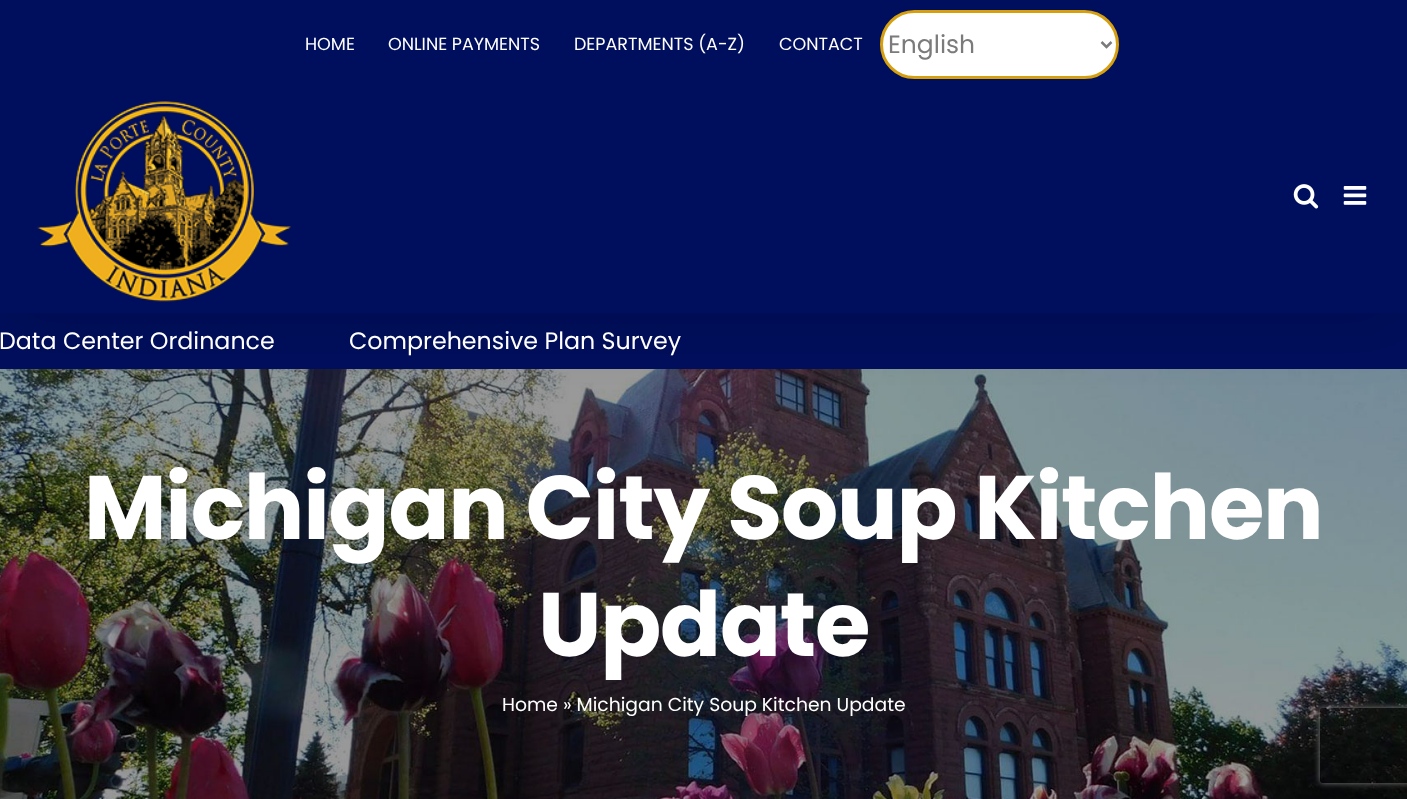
<svg xmlns="http://www.w3.org/2000/svg" width="1407" height="799">
<style>
.a{font:17.5px Poppins;fill:#fff}
.b{font:25px Poppins;fill:#7b7b7b}
.c{font:23.75px Poppins;fill:#fff}
.d{font:bold 90px Poppins;letter-spacing:-1.25px;fill:#fff}
.e{font:18.75px Poppins;fill:#fff}
</style>
<defs>
<clipPath id="clip1"><path d="M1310 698h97v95h-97zm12.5 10h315c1.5 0 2.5 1 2.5 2.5v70c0 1.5-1 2.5-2.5 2.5h-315c-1.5 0-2.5-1-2.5-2.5v-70c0-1.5 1-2.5 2.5-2.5z" clip-rule="evenodd"/></clipPath>
</defs>
<rect width="100%" height="100%" fill="#fff"/>
<path fill="#000f5d" d="M0 313h1407v56H0z"/>
<image href="4.png" x="0" y="369" width="1407" height="430"/>
<path fill="#00000024" filter="blur(31px)" d="M3 15h1402v308H3z"/>
<path fill="#000f5d" d="M0 0h1407v313H0z"/>
<rect fill="#fff" stroke="#d59f0f" stroke-width="3" x="881.5" y="11.5" width="236" height="66" rx="33"/>
<path fill="none" stroke="#7b7b7b" stroke-width="2.5" d="M1101.5 42l5 5l5-5"/>
<image href="1.png" x="37" y="101" width="255" height="201"/>
<image href="2.png" x="1293" y="184" width="26" height="25"/>
<image href="3.png" x="1343" y="186" width="24" height="19"/>
<g clip-path="url(#clip1)">
<rect fill="#808080" filter="blur(3px)" x="1320" y="708" width="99" height="75" rx="2.5"/>
</g>
<text class="a" x="305" y="50">HOME</text>
<text class="a" x="388" y="50">ONLINE PAYMENTS</text>
<text class="a" x="574" y="50">DEPARTMENTS (A-Z)</text>
<text class="a" x="779" y="50">CONTACT</text>
<text class="b" x="888" y="53">English</text>
<text class="c" x="-1" y="349">Data Center Ordinance</text>
<text class="c" x="349" y="349">Comprehensive Plan Survey</text>
<text class="d" x="84" y="539">Michigan City Soup Kitchen</text>
<text class="d" x="538" y="656">Update</text>
<text class="e" x="502" y="711">Home » Michigan City Soup Kitchen Update</text>
</svg>
